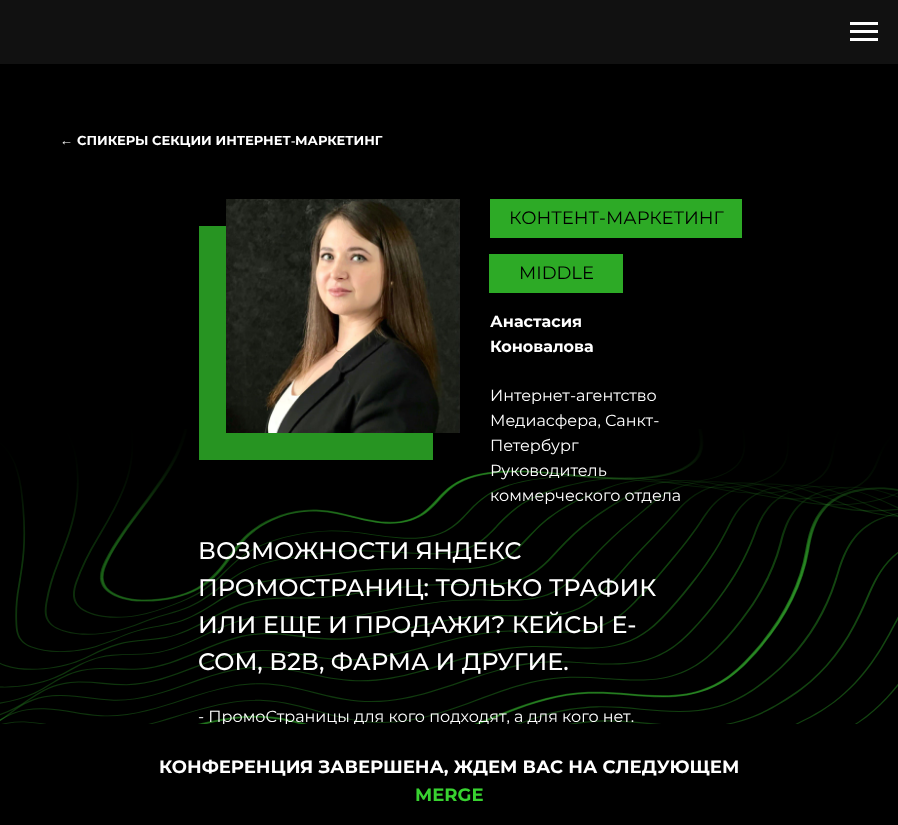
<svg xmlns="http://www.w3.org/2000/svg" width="898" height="825">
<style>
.a{font:bold 13px Liberation Serif;fill:#fff}
.b{font:bold 13px Montserrat;fill:#fff}
.c{font:18px Montserrat;fill:#000}
.d{font:bold 16px Montserrat;fill:#fff}
.e{font:16px Montserrat;fill:#fff}
.f{font:500 24px Montserrat;fill:#fff}
.g{font:bold 18px Montserrat;fill:#fff}
.h{font:bold 18px Montserrat;fill:#38d230}
</style>
<rect width="100%" height="100%" fill="#000"/>
<path fill="#111" d="M0 0h898v64H0z"/>
<path fill="#fff" d="M850 22h28v3H850z"/>
<path fill="#fff" d="M850 30h28v3H850z"/>
<path fill="#fff" d="M850 38h28v3H850z"/>
<image href="2.png" x="0" y="429" width="898" height="295"/>
<path fill="#279422" d="M199 226h234v234H199z"/>
<image href="1.png" x="226" y="199" width="234" height="234"/>
<path fill="#2daa26" d="M490 199h252v39H490z"/>
<path fill="#2daa26" d="M489 254h134v39H489z"/>
<text class="a" x="60" y="145">←</text>
<text class="b" x="77" y="145">СПИКЕРЫ СЕКЦИИ ИНТЕРНЕТ</text>
<text class="a" x="291" y="145">-</text>
<text class="b" x="295" y="145">МАРКЕТИНГ</text>
<text class="c" x="509" y="224">КОНТЕНТ-МАРКЕТИНГ</text>
<text class="c" x="519" y="279">MIDDLE</text>
<text class="d" x="490" y="327">Анастасия</text>
<text class="d" x="490" y="352">Коновалова</text>
<text class="e" x="490" y="401">Интернет-агентство</text>
<text class="e" x="490" y="426">Медиасфера, Санкт-</text>
<text class="e" x="490" y="451">Петербург</text>
<text class="e" x="490" y="476">Руководитель</text>
<text class="e" x="490" y="501">коммерческого отдела</text>
<text class="f" x="198" y="559">ВОЗМОЖНОСТИ ЯНДЕКС</text>
<text class="f" x="198" y="596">ПРОМОСТРАНИЦ: ТОЛЬКО ТРАФИК</text>
<text class="f" x="198" y="633">ИЛИ ЕЩЕ И ПРОДАЖИ? КЕЙСЫ E-</text>
<text class="f" x="198" y="670">COM, В2В, ФАРМА И ДРУГИЕ.</text>
<text class="e" x="198" y="722">- ПромоСтраницы для кого подходят, а для кого нет.</text>
<path fill="#000" d="M223 724h286v2H223z"/>
<text class="g" x="159" y="773">КОНФЕРЕНЦИЯ ЗАВЕРШЕНА, ЖДЕМ ВАС НА СЛЕДУЮЩЕМ</text>
<text class="h" x="415" y="801">MERGE</text>
</svg>
